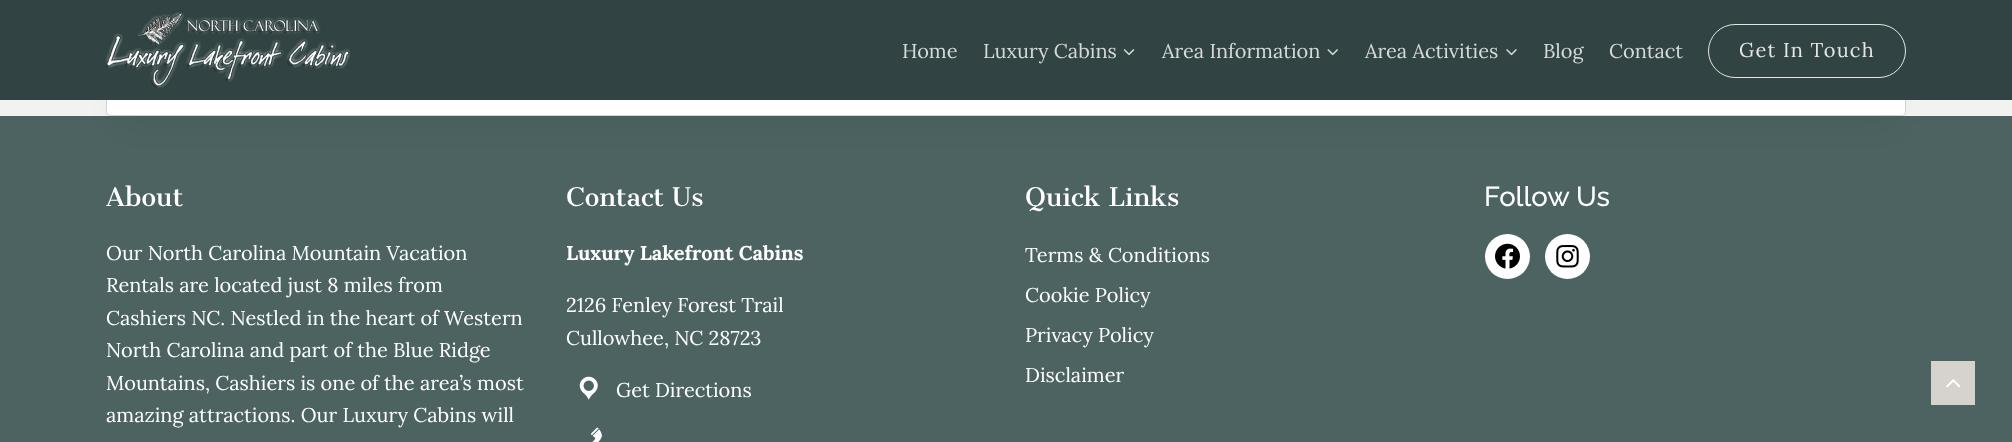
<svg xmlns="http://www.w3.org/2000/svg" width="2012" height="442">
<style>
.a{font:20px Lora;fill:#d6dad9}
.b{font:20px Lora;letter-spacing:1.25px;fill:#e6e6e6}
.c{font:25px Cantata One;fill:#fff}
.d{font:20px Lora;fill:#fff}
.e{font:bold 20px Lora;fill:#fff}
.f{font:100 27.5px Raleway;fill:#fff}
</style>
<rect width="100%" height="100%" fill="#f2f2f0"/>
<path fill="#4c6362" d="M0 116h2012v326H0z"/>
<path fill="#0000000d" filter="blur(15.5px)" d="M119 -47h1775v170H119z"/>
<rect fill="#fff" stroke="#cbd5e0" x="106.5" y="65.5" width="1799" height="50" rx="3.5"/>
<path fill="#314443" d="M0 0h2012v100H0z"/>
<image href="1.png" x="106" y="12" width="244" height="76"/>
<image href="2.png" x="1123" y="49" width="12" height="7"/>
<image href="3.png" x="1327" y="49" width="11" height="7"/>
<image href="4.png" x="1506" y="49" width="11" height="7"/>
<rect fill="none" stroke="#e6e6e6" x="1708.5" y="24.5" width="197" height="53" rx="26.5"/>
<image href="5.png" x="579" y="376" width="19" height="24"/>
<image href="6.png" x="591" y="427" width="11" height="15"/>
<circle fill="#fff" cx="1507.5" cy="256.5" r="22.5"/>
<image href="7.png" x="1495" y="243" width="25" height="26"/>
<circle fill="#fff" cx="1567.5" cy="256.5" r="22.5"/>
<image href="8.png" x="1556" y="245" width="23" height="23"/>
<path fill="#d5d3cc" d="M1931 361h44v44H1931z"/>
<image href="9.png" x="1946" y="379" width="15" height="9"/>
<text class="a" x="902" y="58">Home</text>
<text class="a" x="983" y="58">Luxury Cabins</text>
<text class="a" x="1162" y="58">Area Information</text>
<text class="a" x="1365" y="58">Area Activities</text>
<text class="a" x="1543" y="58">Blog</text>
<text class="a" x="1609" y="58">Contact</text>
<text class="b" x="1739" y="57">Get In Touch</text>
<text class="c" x="106" y="206">About</text>
<text class="d" x="106" y="260">Our North Carolina Mountain Vacation</text>
<text class="d" x="106" y="292">Rentals are located just 8 miles from</text>
<text class="d" x="106" y="325">Cashiers NC. Nestled in the heart of Western</text>
<text class="d" x="106" y="357">North Carolina and part of the Blue Ridge</text>
<text class="d" x="106" y="390">Mountains, Cashiers is one of the area’s most</text>
<text class="d" x="106" y="422">amazing attractions. Our Luxury Cabins will</text>
<text class="c" x="566" y="206">Contact Us</text>
<text class="e" x="566" y="260">Luxury Lakefront Cabins</text>
<text class="d" x="566" y="312">2126 Fenley Forest Trail</text>
<text class="d" x="566" y="345">Cullowhee, NC 28723</text>
<text class="d" x="616" y="397">Get Directions</text>
<text class="c" x="1025" y="206">Quick Links</text>
<text class="d" x="1025" y="262">Terms &amp; Conditions</text>
<text class="d" x="1025" y="302">Cookie Policy</text>
<text class="d" x="1025" y="342">Privacy Policy</text>
<text class="d" x="1025" y="382">Disclaimer</text>
<text class="f" x="1484" y="206">Follow Us</text>
</svg>
